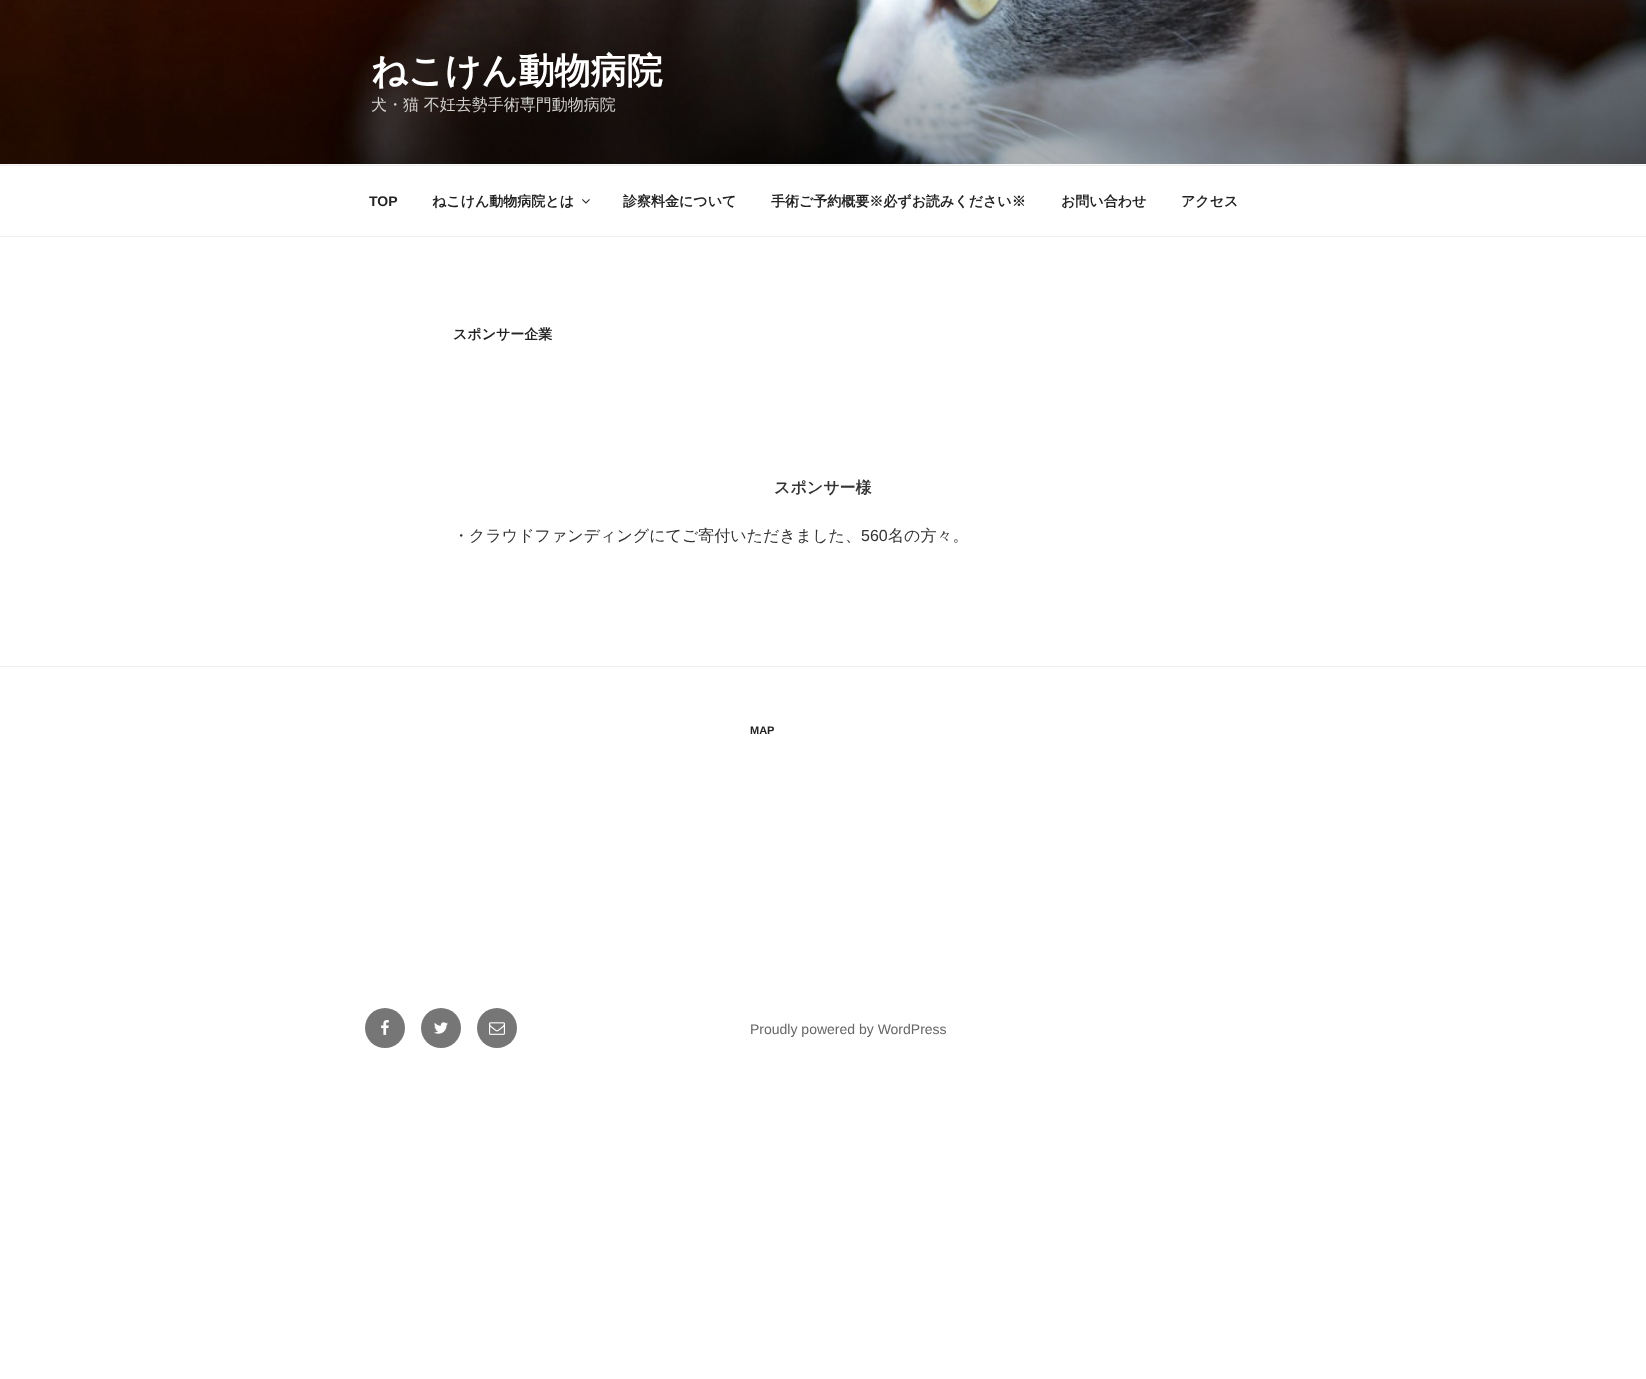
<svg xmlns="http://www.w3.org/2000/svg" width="1646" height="1379">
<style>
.a{font:bold 36px WenQuanYi Zen Hei;fill:#fff}
.b{font:500 16px WenQuanYi Zen Hei;fill:#d1d0cf}
.c{font:bold 14px Liberation Sans;fill:#222}
.d{font:bold 14px WenQuanYi Zen Hei;fill:#222}
.e{font:bold 16px WenQuanYi Zen Hei;fill:#333}
.f{font:500 16px WenQuanYi Zen Hei;fill:#333}
.g{font:16px Liberation Sans;fill:#333}
.h{font:bold 11px Liberation Sans;fill:#222}
.i{font:14px Liberation Sans;fill:#666}
</style>
<rect width="100%" height="100%" fill="#fff"/>
<path fill="#fafafa" d="M0 164h1646v1H0z"/>
<image href="1.png" x="0" y="0" width="1646" height="164"/>
<path fill="#eee" d="M0 165h1646v1H0z"/>
<path fill="#eee" d="M0 236h1646v1H0z"/>
<image href="2.png" x="582" y="199" width="8" height="5"/>
<path fill="#eee" d="M0 666h1646v1H0z"/>
<circle fill="#767676" cx="385" cy="1028" r="20"/>
<image href="3.png" x="381" y="1020" width="8" height="15"/>
<circle fill="#767676" cx="441" cy="1028" r="20"/>
<image href="4.png" x="434" y="1022" width="14" height="12"/>
<circle fill="#767676" cx="497" cy="1028" r="20"/>
<image href="5.png" x="489" y="1022" width="16" height="13"/>
<text class="a" x="371" y="83">ねこけん動物病院</text>
<text class="b" x="371" y="110">犬・猫 不妊去勢手術専門動物病院</text>
<text class="c" x="369" y="206">TOP</text>
<text class="d" x="432" y="206">ねこけん動物病院とは</text>
<text class="d" x="623" y="206">診察料金について</text>
<text class="d" x="771" y="206">手術ご予約概要※必ずお読みください※</text>
<text class="d" x="1061" y="206">お問い合わせ</text>
<text class="d" x="1181" y="206">アクセス</text>
<text class="d" x="453" y="339">スポンサー企業</text>
<text class="e" x="774" y="493">スポンサー様</text>
<text class="f" x="453" y="541">・クラウドファンディングにてご寄付いただきました、</text>
<text class="g" x="861" y="541">560</text>
<text class="f" x="888" y="541">名の方々。</text>
<text class="h" x="750" y="734">MAP</text>
<text class="i" x="750" y="1034">Proudly powered by WordPress</text>
</svg>
